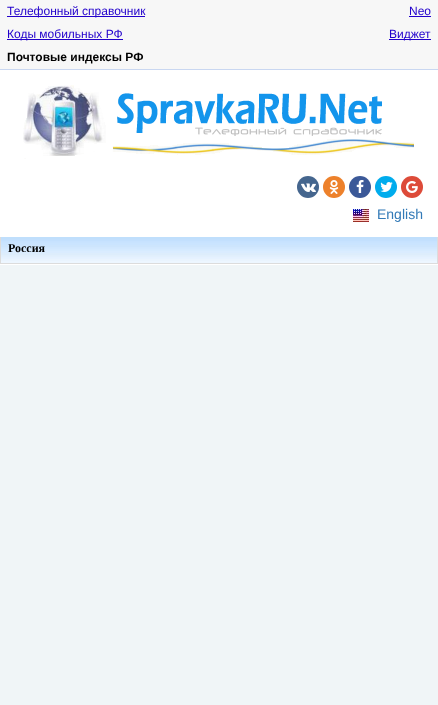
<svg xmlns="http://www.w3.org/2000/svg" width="438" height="705">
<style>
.a{font:12px Liberation Sans;fill:#20c}
.b{font:bold 12px Liberation Sans;fill:#000}
.c{font:14px Liberation Sans;fill:#337ab7}
.d{font:bold 12px Liberation Serif;fill:#000}
</style>
<rect width="100%" height="100%" fill="#fff"/>
<path fill="#f7f7f7" d="M0 0h438v69H0z"/>
<path fill="#c9d7f1" d="M0 69h438v1H0z"/>
<path fill="#20c" d="M7 16h138v1H7z"/>
<path fill="#20c" d="M7 39h116v1H7z"/>
<path fill="#20c" d="M409 16h22v1H409z"/>
<path fill="#20c" d="M389 39h42v1H389z"/>
<image href="1.png" x="23" y="85" width="391" height="74"/>
<circle fill="#45668e" cx="308" cy="187" r="11"/>
<image href="2.png" x="301" y="183" width="15" height="9"/>
<circle fill="#ed812b" cx="334" cy="187" r="11"/>
<image href="3.png" x="329" y="180" width="10" height="14"/>
<circle fill="#3b5998" cx="360" cy="187" r="11"/>
<image href="4.png" x="356" y="180" width="8" height="13"/>
<circle fill="#00aced" cx="386" cy="187" r="11"/>
<image href="5.png" x="380" y="182" width="13" height="10"/>
<circle fill="#dd4b39" cx="412" cy="187" r="11"/>
<image href="6.png" x="406" y="181" width="12" height="12"/>
<image href="7.png" x="353" y="209" width="16" height="13"/>
<image href="8.png" x="1" y="237" width="436" height="26"/>
<path fill="#dcdcdc" d="M437 237h1v27H437z"/>
<path fill="#dcdcdc" d="M0 263h438v1H0z"/>
<path fill="#dcdcdc" d="M0 237h1v27H0z"/>
<path fill="#f0f5f7" d="M0 265h438v440H0z"/>
<text class="a" x="7" y="15">Телефонный справочник</text>
<text class="a" x="7" y="38">Коды мобильных РФ</text>
<text class="b" x="7" y="61">Почтовые индексы РФ</text>
<text class="a" x="409" y="15">Neo</text>
<text class="a" x="389" y="38">Виджет</text>
<text class="c" x="377" y="219">English</text>
<text class="d" x="8" y="252">Россия</text>
</svg>
